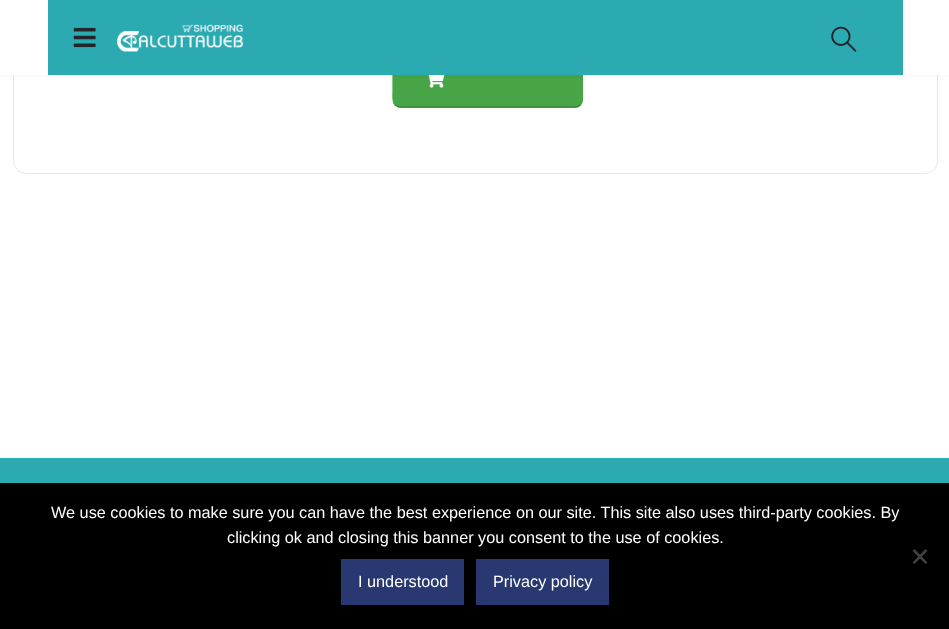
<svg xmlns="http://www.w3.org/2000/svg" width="949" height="629">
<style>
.a{font:16.25px Liberation Sans;fill:#fff}
</style>
<rect width="100%" height="100%" fill="#fff"/>
<rect fill="none" stroke="#e7e7e7" x="13.5" y="-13.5" width="924" height="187" rx="12.5"/>
<rect fill="#47a447" x="393" y="46" width="190" height="62" rx="8"/>
<path fill="none" stroke="#388038" stroke-width="1.2" d="M580 105c-1.5 1-3 2-5 2h-175c-2 0-3.5-1-5-2"/>
<path fill="none" stroke="#47a447" stroke-width="1.2" d="M395 105c-3-3.5-2-9-2-12.5v-31c0-5.5-1-14.5 7-14.5h146c40.5 0 36-7 36 30v15.5c0 3.5 1 9-2 12.5"/>
<image href="1.png" x="428" y="75" width="17" height="13"/>
<path fill="#0000000f" filter="blur(2px)" d="M0 0h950v75H0z"/>
<path fill="#fff" d="M0 0h949v75H0z"/>
<path fill="#2baab1" d="M48 0h855v75H48z"/>
<image href="2.png" x="73" y="27" width="23" height="21"/>
<image href="3.png" x="117" y="24" width="126" height="28"/>
<image href="4.png" x="831" y="26" width="26" height="26"/>
<path fill="#2baab1" d="M0 458h949v25H0z"/>
<path fill="#000" d="M0 483h949v146H0z"/>
<path fill="#404040" d="M925.5 549l2 2l-13 13l-2-1.5z"/>
<path fill="#404040" d="M912.5 551l2-2l13 13.5l-2 1.5z"/>
<path fill="#293871" d="M341 559h123v46H341z"/>
<path fill="#293871" d="M476 559h133v46H476z"/>
<text class="a" x="51" y="518">We use cookies to make sure you can have the best experience on our site. This site also uses third-party cookies. By</text>
<text class="a" x="227" y="543">clicking ok and closing this banner you consent to the use of cookies.</text>
<text class="a" x="358" y="587">I understood</text>
<text class="a" x="493" y="587">Privacy policy</text>
</svg>
